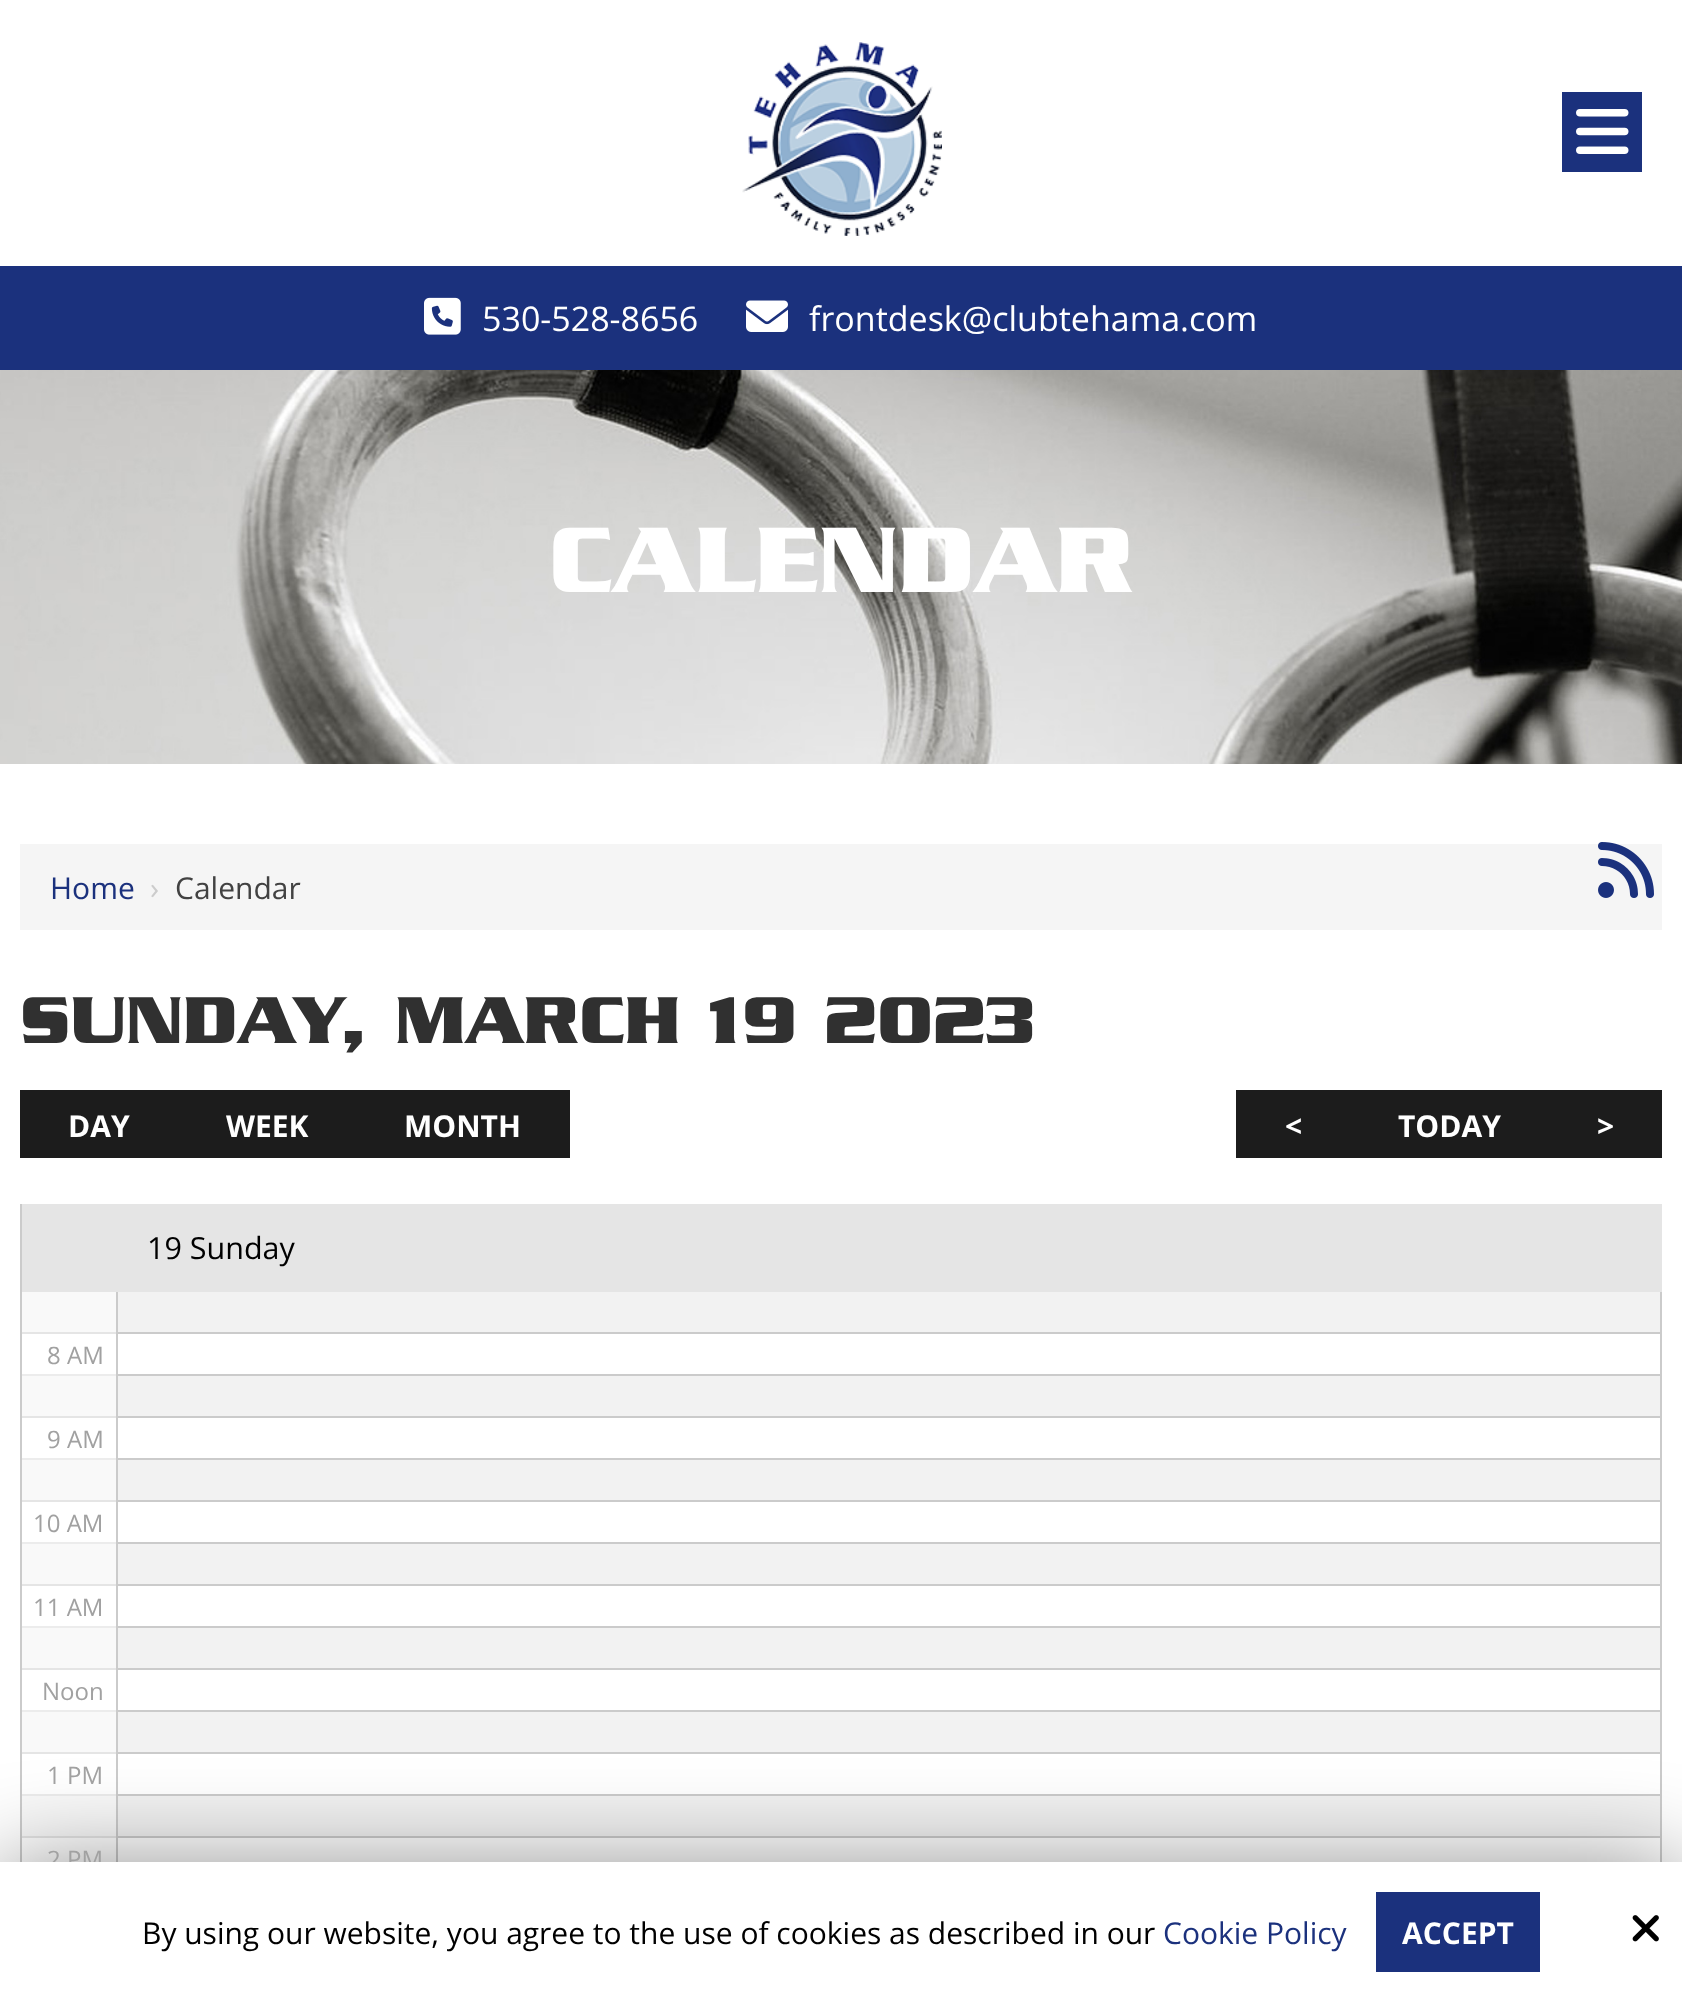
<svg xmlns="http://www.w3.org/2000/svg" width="1682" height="1991">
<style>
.a{font:34px Open Sans;fill:#fff}
.b{font:100px 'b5';fill:#fff}
.c{font:30px Open Sans;fill:#1b317d}
.d{font:30px Open Sans;fill:#ccc}
.e{font:30px Open Sans;fill:#424242}
.f{font:71.4px 'b5';fill:#303030}
.g{font:bold 30px Open Sans;fill:#fff}
.h{font:30.5px Open Sans;fill:#000}
.i{font:24px Open Sans;fill:#a1a1a1}
.j{font:30px Open Sans;fill:#000}
</style>
<rect width="100%" height="100%" fill="#fff"/>
<path fill="#f9f9f9" d="M22 1796h94v40H22z"/>
<path fill="#f9f9f9" d="M22 1712h94v40H22z"/>
<path fill="#f9f9f9" d="M22 1628h94v40H22z"/>
<path fill="#f9f9f9" d="M22 1544h94v40H22z"/>
<path fill="#f9f9f9" d="M22 1460h94v40H22z"/>
<path fill="#f9f9f9" d="M22 1376h94v40H22z"/>
<path fill="#f9f9f9" d="M22 1292h94v40H22z"/>
<path fill="#e5e5e5" d="M22 1332h94v2H22z"/>
<path fill="#ececec" d="M22 1374h94v2H22z"/>
<path fill="#e5e5e5" d="M22 1416h94v2H22z"/>
<path fill="#ececec" d="M22 1458h94v2H22z"/>
<path fill="#e5e5e5" d="M22 1500h94v2H22z"/>
<path fill="#ececec" d="M22 1542h94v2H22z"/>
<path fill="#e5e5e5" d="M22 1584h94v2H22z"/>
<path fill="#ececec" d="M22 1626h94v2H22z"/>
<path fill="#e5e5e5" d="M22 1668h94v2H22z"/>
<path fill="#ececec" d="M22 1710h94v2H22z"/>
<path fill="#e5e5e5" d="M22 1752h94v2H22z"/>
<path fill="#ececec" d="M22 1794h94v2H22z"/>
<path fill="#e5e5e5" d="M22 1836h94v2H22z"/>
<image href="1.png" x="742" y="42" width="200" height="194"/>
<path fill="#1b317d" d="M1562 92h80v80H1562z"/>
<image href="2.png" x="1576" y="109" width="53" height="45"/>
<path fill="#1b317d" d="M0 266h1682v104H0z"/>
<image href="3.png" x="424" y="297" width="37" height="38"/>
<image href="4.png" x="746" y="300" width="42" height="32"/>
<image href="5.png" x="0" y="370" width="1682" height="394"/>
<path fill="#f5f5f5" d="M20 844h1642v86H20z"/>
<image href="6.png" x="1598" y="842" width="56" height="56"/>
<path fill="#1c1c1c" d="M20 1090h550v68H20z"/>
<path fill="#1c1c1c" d="M1236 1090h426v68H1236z"/>
<path fill="#cbcbcb" d="M20 1204h2v658H20z"/>
<path fill="#e5e5e5" d="M22 1204h1640v88H22z"/>
<path fill="#cbcbcb" d="M1660 1292h2v570H1660z"/>
<path fill="#f2f2f2" d="M118 1292h1542v40H118z"/>
<path fill="#cbcbcb" d="M116 1332h1546v2H116z"/>
<path fill="#cbcbcb" d="M116 1374h1546v2H116z"/>
<path fill="#cbcbcb" d="M116 1416h1546v2H116z"/>
<path fill="#cbcbcb" d="M116 1458h1546v2H116z"/>
<path fill="#cbcbcb" d="M116 1500h1546v2H116z"/>
<path fill="#cbcbcb" d="M116 1542h1546v2H116z"/>
<path fill="#cbcbcb" d="M116 1584h1546v2H116z"/>
<path fill="#cbcbcb" d="M116 1626h1546v2H116z"/>
<path fill="#cbcbcb" d="M116 1668h1546v2H116z"/>
<path fill="#cbcbcb" d="M116 1710h1546v2H116z"/>
<path fill="#cbcbcb" d="M116 1752h1546v2H116z"/>
<path fill="#cbcbcb" d="M116 1794h1546v2H116z"/>
<path fill="#cbcbcb" d="M116 1836h1546v2H116z"/>
<path fill="#cbcbcb" d="M116 1836h2v26H116z"/>
<path fill="#cbcbcb" d="M116 1794h2v44H116z"/>
<path fill="#cbcbcb" d="M116 1752h2v44H116z"/>
<path fill="#cbcbcb" d="M116 1710h2v44H116z"/>
<path fill="#cbcbcb" d="M116 1668h2v44H116z"/>
<path fill="#cbcbcb" d="M116 1626h2v44H116z"/>
<path fill="#cbcbcb" d="M116 1584h2v44H116z"/>
<path fill="#cbcbcb" d="M116 1542h2v44H116z"/>
<path fill="#cbcbcb" d="M116 1500h2v44H116z"/>
<path fill="#cbcbcb" d="M116 1458h2v44H116z"/>
<path fill="#cbcbcb" d="M116 1416h2v44H116z"/>
<path fill="#cbcbcb" d="M116 1374h2v44H116z"/>
<path fill="#cbcbcb" d="M116 1292h2v84H116z"/>
<path fill="#f2f2f2" d="M118 1376h1542v40H118z"/>
<path fill="#f2f2f2" d="M118 1460h1542v40H118z"/>
<path fill="#f2f2f2" d="M118 1544h1542v40H118z"/>
<path fill="#f2f2f2" d="M118 1628h1542v40H118z"/>
<path fill="#f2f2f2" d="M118 1712h1542v40H118z"/>
<path fill="#f2f2f2" d="M118 1796h1542v40H118z"/>
<path fill="#00000080" filter="blur(50px)" d="M0 1872h1682v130H0z"/>
<text class="a" x="482" y="331">530-528-8656</text>
<text class="a" x="809" y="331">frontdesk@clubtehama.com</text>
<text class="b" x="549" y="592">CALENDAR</text>
<text class="c" x="50" y="899">Home</text>
<text class="d" x="150" y="899">›</text>
<text class="e" x="175" y="899">Calendar</text>
<text class="f" x="20" y="1043">SUNDAY, MARCH 19 2023</text>
<text class="g" x="68" y="1137">DAY</text>
<text class="g" x="226" y="1137">WEEK</text>
<text class="g" x="404" y="1137">MONTH</text>
<text class="g" x="1285" y="1137">&lt;</text>
<text class="g" x="1398" y="1137">TODAY</text>
<text class="g" x="1597" y="1137">&gt;</text>
<text class="h" x="147" y="1259">19 Sunday</text>
<text class="i" x="47" y="1364">8 AM</text>
<text class="i" x="47" y="1448">9 AM</text>
<text class="i" x="33" y="1532">10 AM</text>
<text class="i" x="33" y="1616">11 AM</text>
<text class="i" x="42" y="1700">Noon</text>
<text class="i" x="47" y="1784">1 PM</text>
<text class="i" x="47" y="1868">2 PM</text>
<path fill="#fff" d="M0 1862h1682v129H0z"/>
<text class="j" x="142" y="1944">By using our website, you agree to the use of cookies as described in our</text>
<text class="c" x="1163" y="1944">Cookie Policy</text>
<path fill="#1b317d" d="M1376 1892h164v80H1376z"/>
<text class="g" x="1402" y="1944">ACCEPT</text>
<image href="7.png" x="1632" y="1915" width="27" height="27"/>
</svg>
